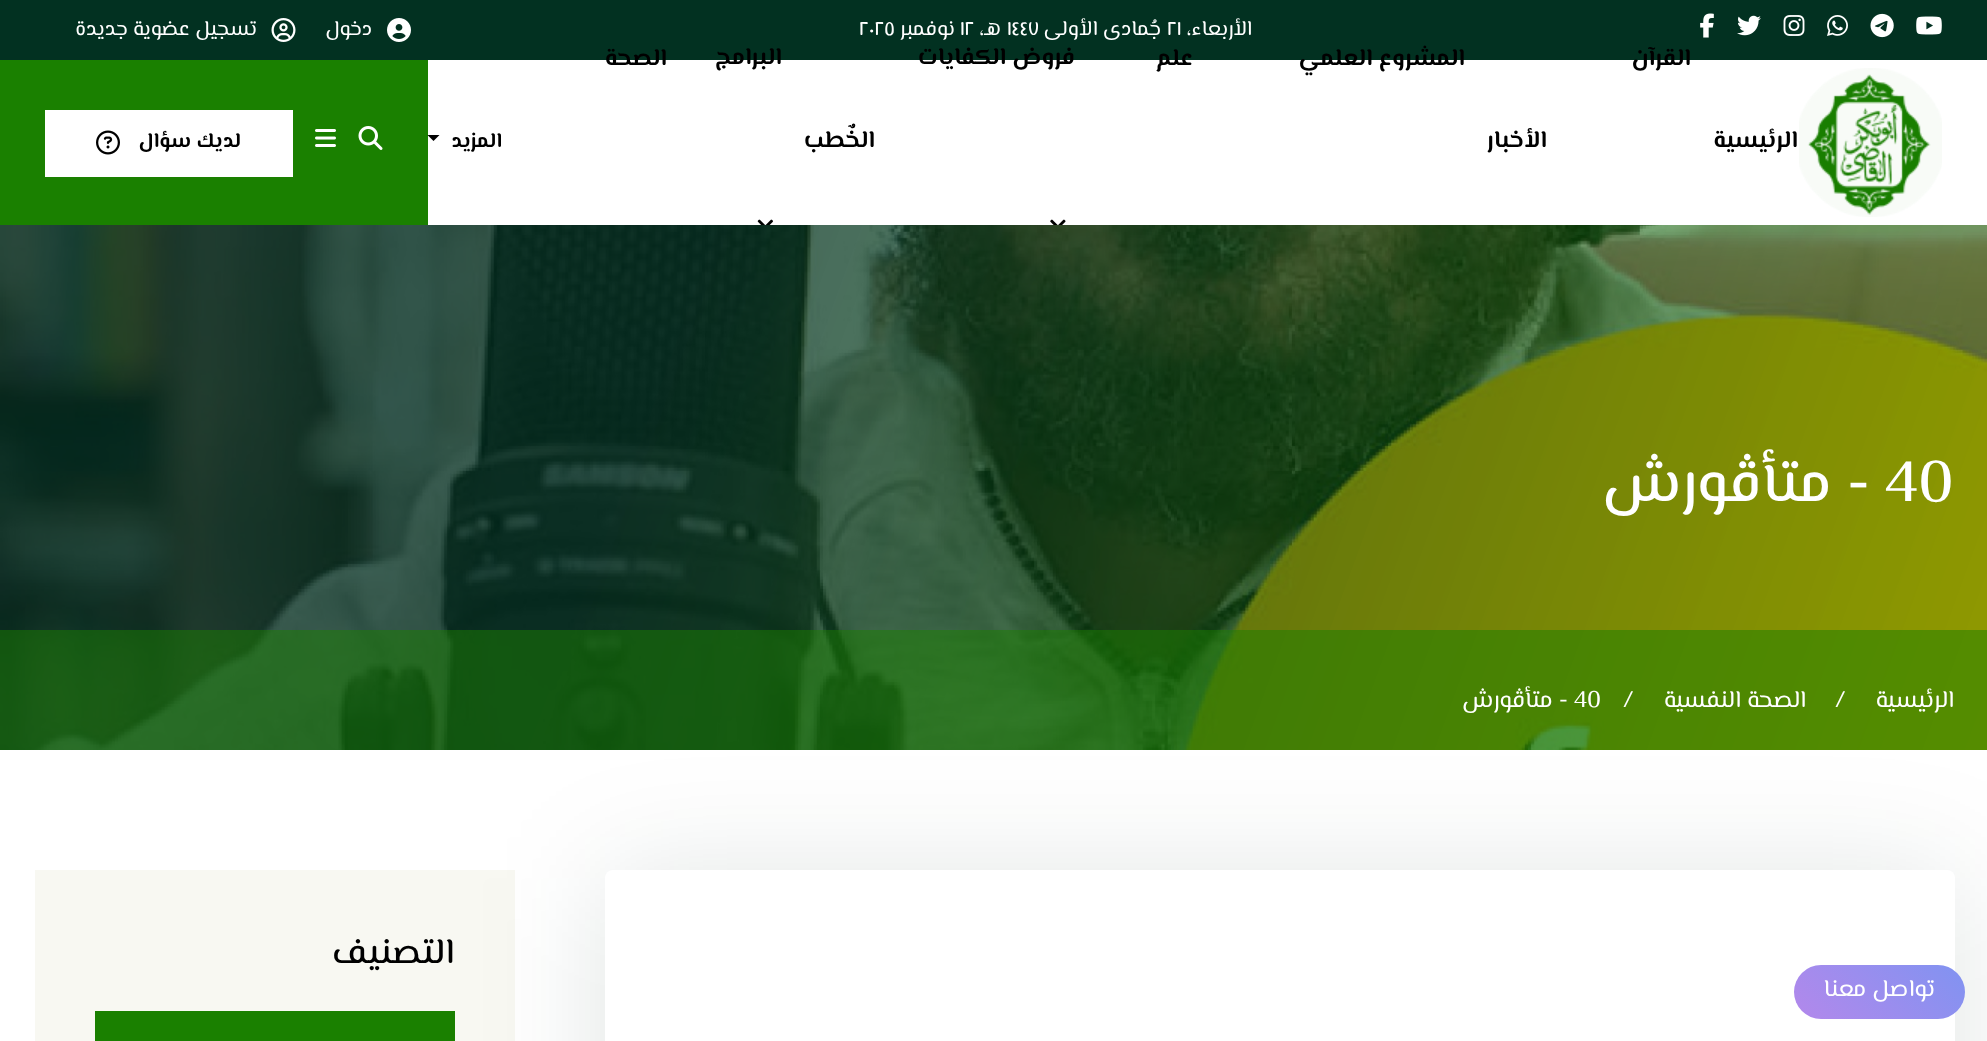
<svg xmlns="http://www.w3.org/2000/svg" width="1987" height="1041">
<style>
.a{font:21px El Messiri;direction:rtl;fill:#fff}
.b{font:21px El Messiri;fill:#fff}
.c{font:bold 24px El Messiri;direction:rtl;fill:#000}
.d{font:bold 21px El Messiri;direction:rtl;fill:#000}
.e{font:500 60px El Messiri;fill:#fff}
.f{font:500 60px El Messiri;direction:rtl;fill:#fff}
.g{font:24px El Messiri;direction:rtl;fill:#fff}
.h{font:24px El Messiri;fill:#fff}
.i{font:500 36px El Messiri;direction:rtl;fill:#000}
</style>
<defs>
<linearGradient id="g1" gradientUnits="userSpaceOnUse" x1="1823" y1="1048" x2="1936" y2="935"><stop offset="0" stop-color="#b388eb"/><stop offset="1" stop-color="#8093f1"/></linearGradient>
</defs>
<rect width="100%" height="100%" fill="#fff"/>
<path fill="#023121" d="M0 0h1987v60H0z"/>
<image href="1.png" x="1916" y="16" width="26" height="19"/>
<image href="2.png" x="1870" y="13" width="24" height="25"/>
<image href="3.png" x="1827" y="15" width="21" height="21"/>
<image href="4.png" x="1783" y="15" width="22" height="21"/>
<image href="5.png" x="1737" y="15" width="24" height="21"/>
<image href="6.png" x="1700" y="13" width="14" height="25"/>
<image href="7.png" x="387" y="18" width="24" height="24"/>
<image href="8.png" x="271" y="18" width="25" height="24"/>
<image href="9.png" x="1799" y="68" width="143" height="149"/>
<image href="10.png" x="1050" y="219" width="16" height="6"/>
<image href="11.png" x="757" y="219" width="16" height="6"/>
<path fill="#1a8000" d="M0 60h428v165H0z"/>
<path fill="#000" d="M427.5 135h12l-6 6z"/>
<image href="12.png" x="358" y="126" width="25" height="24"/>
<image href="13.png" x="315" y="129" width="21" height="18"/>
<path fill="#fff" d="M45 110h248v67H45z"/>
<image href="14.png" x="96" y="130" width="24" height="25"/>
<image href="15.png" x="0" y="225" width="1987" height="525"/>
<path fill="#1a800080" d="M0 630h1987v120H0z"/>
<path fill="#f8f8f2" d="M35 870h480v171H35z"/>
<path fill="#1a8000" d="M95 1011h360v30H95z"/>
<rect fill="#0122171f" filter="blur(62px)" x="605" y="878" width="1350" height="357" rx="8"/>
<rect fill="#fff" x="605" y="870" width="1350" height="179" rx="8"/>
<rect fill="url(#g1)" x="1794" y="965" width="171" height="54" rx="27"/>
<text class="a" x="1252" y="35">الأربعاء،</text>
<text class="b" x="1167" y="35">٢١</text>
<text class="a" x="1161" y="35">جُمادى الأولى</text>
<text class="b" x="1007" y="35">١٤٤٧</text>
<text class="a" x="1001" y="35">هـ،</text>
<text class="b" x="960" y="35">١٢</text>
<text class="a" x="955" y="35">نوفمبر</text>
<text class="b" x="859" y="35">٢٠٢٥</text>
<text class="a" x="372" y="35">دخول</text>
<text class="a" x="257" y="35">تسجيل عضوية جديدة</text>
<text class="c" x="1691" y="65">القرآن</text>
<text class="c" x="1465" y="65">المشروع العلمي</text>
<text class="c" x="1193" y="65">علم</text>
<text class="c" x="1075" y="64">فروض الكفايات</text>
<text class="c" x="782" y="64">البرامج</text>
<text class="c" x="667" y="65">الصحة</text>
<text class="c" x="1798" y="147">الرئيسية</text>
<text class="c" x="1547" y="147">الأخبار</text>
<text class="c" x="875" y="147">الخٌطب</text>
<text class="d" x="502" y="147">المزيد</text>
<text class="d" x="241" y="147">لديك سؤال</text>
<text class="e" x="1885" y="501">40</text>
<text class="f" x="1870" y="501">- متأڤورش</text>
<text class="g" x="1954" y="707">الرئيسية</text>
<text class="h" x="1835" y="707">/</text>
<text class="g" x="1806" y="707">الصحة النفسية</text>
<text class="h" x="1623" y="707">/</text>
<text class="h" x="1574" y="707">40</text>
<text class="g" x="1568" y="707">- متأڤورش</text>
<text class="i" x="454" y="963">التصنيف</text>
<text class="g" x="1935" y="996">تواصل معنا</text>
</svg>
